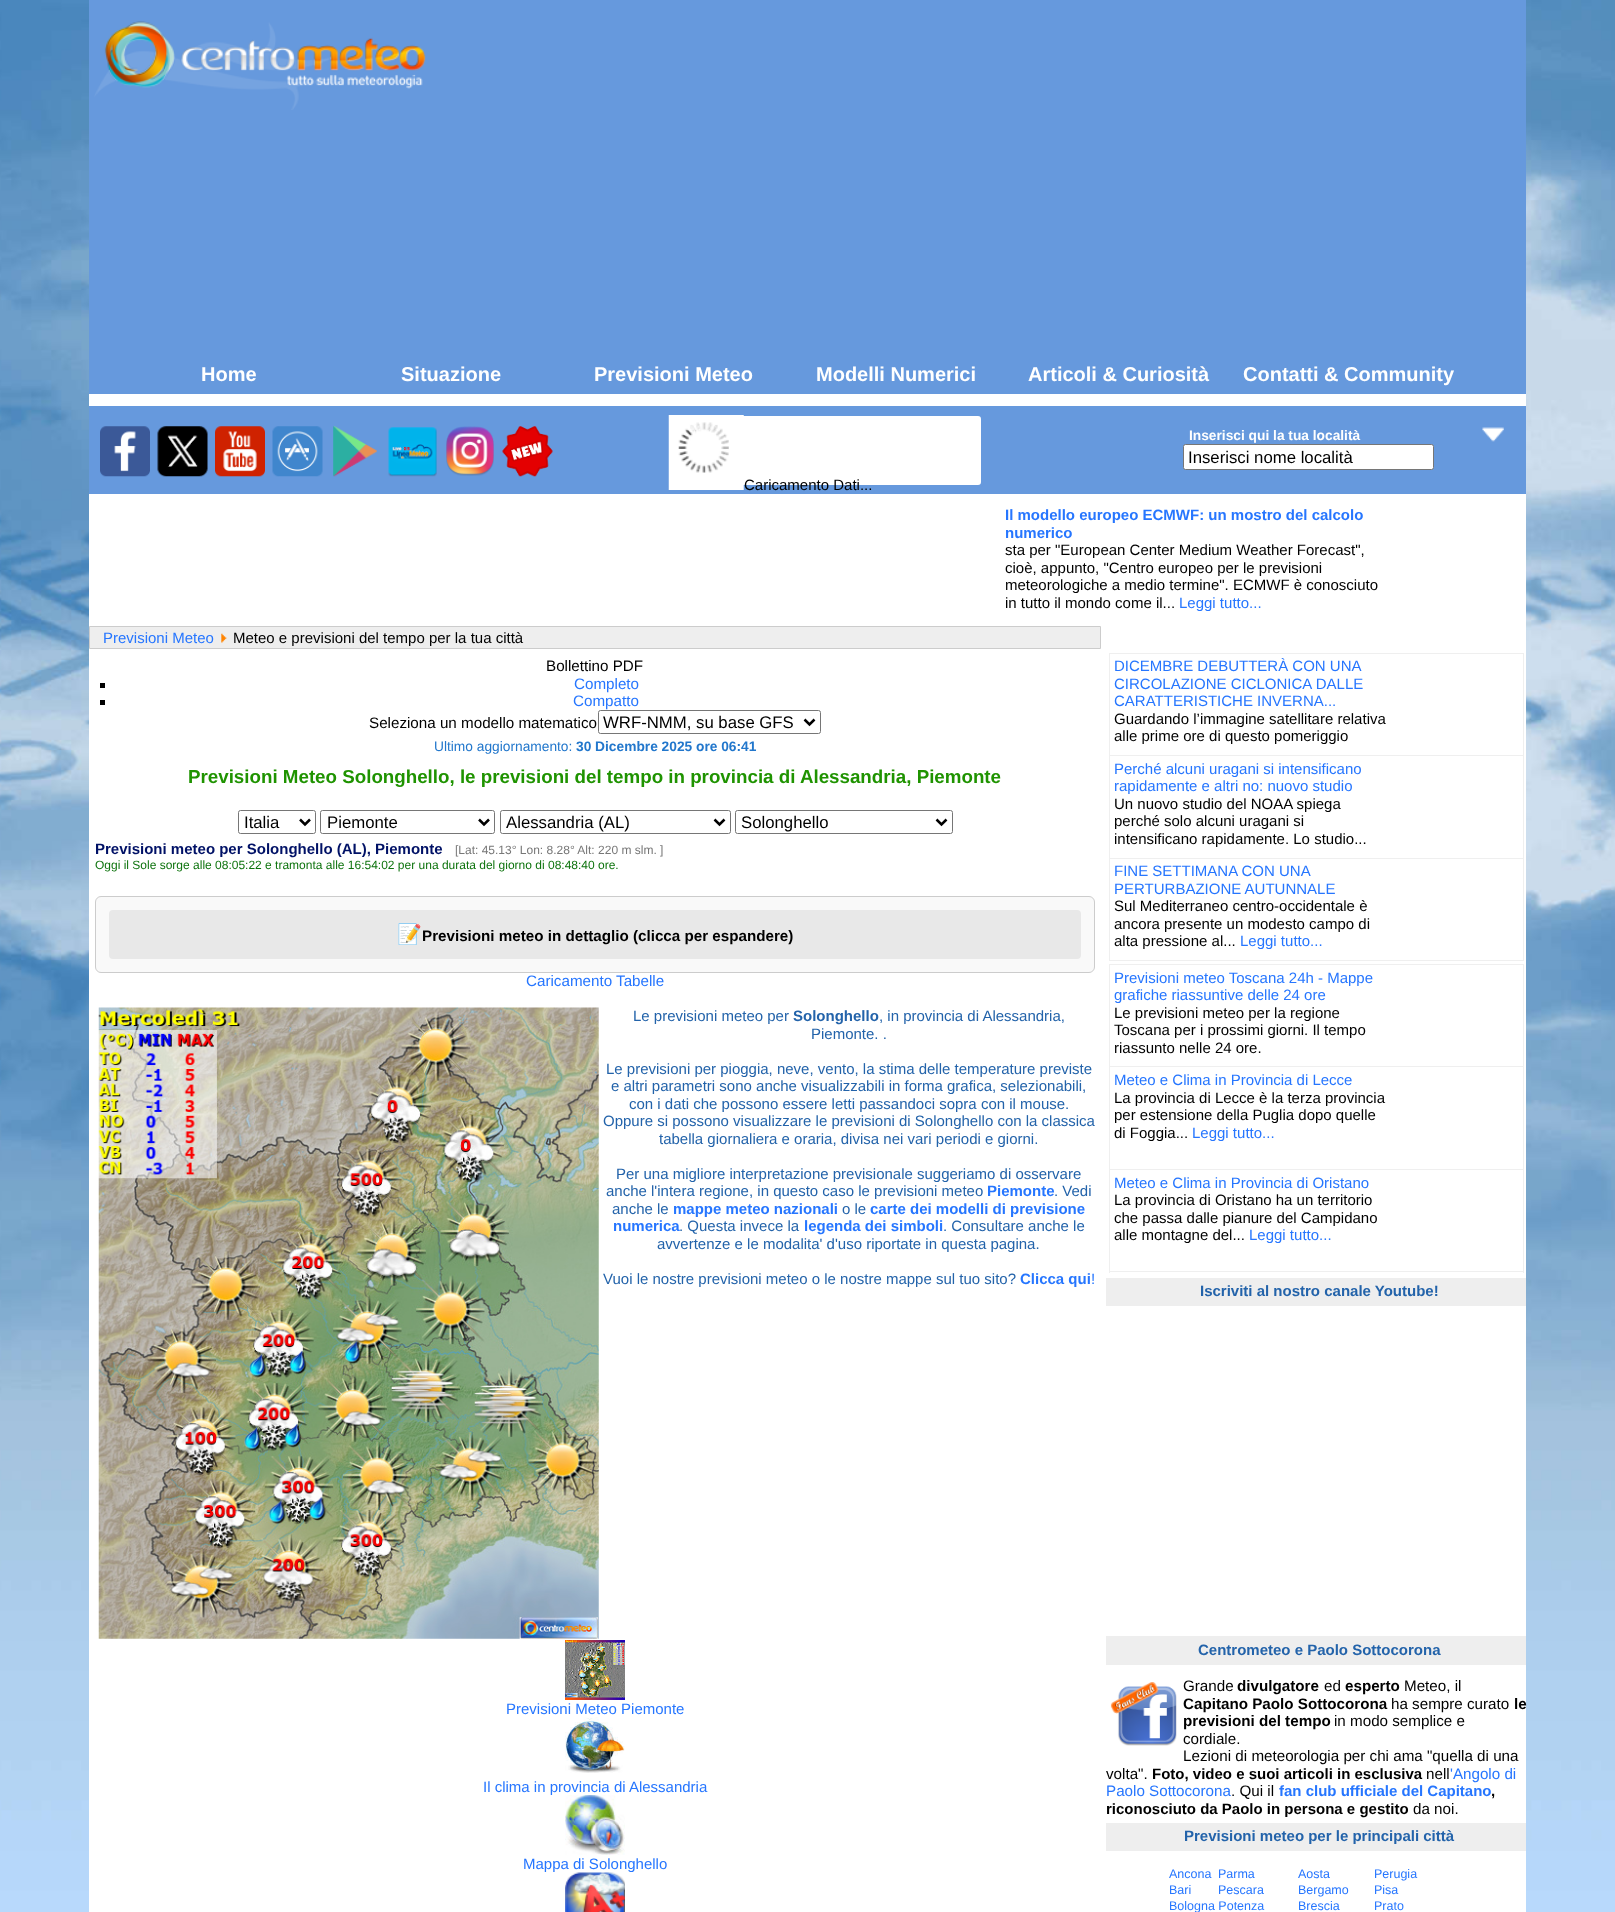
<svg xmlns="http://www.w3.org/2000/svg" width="1615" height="1912">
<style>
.a{font:bold 20px Liberation Sans;fill:#fff}
.b{font:bold 13.75px Liberation Sans;fill:#fff}
.c{font:16.75px Liberation Sans;fill:#000}
.d{font:15px Liberation Sans;fill:#000}
.e{font:bold 15px Liberation Sans;fill:#2676ff}
.f{font:15px Liberation Sans;fill:#2676ff}
.g{font:15.2px Liberation Sans;fill:#000}
.h{font:15.2px Liberation Sans;fill:#2676ff}
.i{font:13.75px Liberation Sans;fill:#27c}
.j{font:bold 13.75px Liberation Sans;fill:#27c}
.k{font:bold 18.75px Liberation Sans;fill:#1f9300}
.l{font:bold 15px Liberation Sans;fill:#016}
.m{font:12px Liberation Sans;fill:#777}
.n{font:12px Liberation Sans;fill:#0d730d}
.o{font:bold 20px Noto Color Emoji;fill:#000}
.p{font:bold 15.2px Liberation Sans;fill:#000}
.q{font:15px Liberation Sans;fill:#2363aa}
.r{font:bold 15px Liberation Sans;fill:#2363aa}
.s{font:bold 15px Liberation Sans;fill:#000}
.t{font:12.5px Liberation Sans;fill:#2676ff}
</style>
<rect width="100%" height="100%" fill="#fff"/>
<image href="1.png" x="0" y="0" width="1615" height="1912"/>
<path fill="#fff" d="M89 394h1437v1518H89z"/>
<path fill="#69d" d="M89 0h1437v394H89z"/>
<image href="2.png" x="94" y="21" width="332" height="89"/>
<path fill="#69d" d="M89 406h1437v88H89z"/>
<image href="3.png" x="100" y="426" width="50" height="51"/>
<image href="4.png" x="157" y="426" width="51" height="51"/>
<image href="5.png" x="215" y="426" width="50" height="51"/>
<image href="6.png" x="272" y="426" width="51" height="51"/>
<image href="7.png" x="333" y="426" width="44" height="51"/>
<image href="8.png" x="388" y="427" width="49" height="50"/>
<image href="9.png" x="446" y="426" width="48" height="50"/>
<image href="10.png" x="502" y="426" width="51" height="51"/>
<image href="11.png" x="1482" y="427" width="22" height="15"/>
<rect fill="#fff" stroke="#767676" x="1183.5" y="444.5" width="250" height="25" rx="2"/>
<rect fill="#fff" stroke="#69d" stroke-width="3" x="667.5" y="414.5" width="315" height="72" rx="4.5"/>
<image href="12.png" x="668" y="415" width="76" height="75"/>
<path fill="#eee" stroke="#ccc" d="M89.5 626.5h1011v22H89.5z"/>
<image href="13.png" x="221" y="633" width="6" height="10"/>
<path fill="#000" d="M100 683h5v5H100z"/>
<path fill="#000" d="M100 700h5v5H100z"/>
<rect fill="none" stroke="#767676" x="598.5" y="710.5" width="222" height="23" rx="2"/>
<path fill="none" stroke="#000" stroke-width="2.5" d="M804.5 719.5l5 5l5-5"/>
<rect fill="none" stroke="#767676" x="238.5" y="810.5" width="77" height="23" rx="2"/>
<path fill="none" stroke="#000" stroke-width="2.5" d="M300 819.5l5 5l5-5"/>
<rect fill="none" stroke="#767676" x="320.5" y="810.5" width="174" height="23" rx="2"/>
<path fill="none" stroke="#000" stroke-width="2.5" d="M479 819.5l5 5l5-5"/>
<rect fill="none" stroke="#767676" x="500.5" y="810.5" width="230" height="23" rx="2"/>
<path fill="none" stroke="#000" stroke-width="2.5" d="M714.5 819.5l5 5l5-5"/>
<rect fill="none" stroke="#767676" x="735.5" y="810.5" width="217" height="23" rx="2"/>
<path fill="none" stroke="#000" stroke-width="2.5" d="M936.5 819.5l5 5l5-5"/>
<rect fill="#f9f9f9" stroke="#ccc" x="95.5" y="896.5" width="999" height="76" rx="5.5"/>
<rect fill="#e8e8e8" x="109" y="910" width="972" height="49" rx="4"/>
<image href="14.png" x="98" y="1007" width="501" height="632"/>
<image href="15.png" x="565" y="1640" width="60" height="60"/>
<image href="16.png" x="565" y="1717" width="60" height="56"/>
<path fill="#efefef" d="M1109 653h415v1H1109z"/>
<path fill="#efefef" d="M1523 654h1v307H1523z"/>
<path fill="#efefef" d="M1109 755h415v1H1109z"/>
<path fill="#efefef" d="M1109 654h1v102H1109z"/>
<path fill="#efefef" d="M1109 858h415v1H1109z"/>
<path fill="#efefef" d="M1109 756h1v103H1109z"/>
<path fill="#efefef" d="M1109 960h415v1H1109z"/>
<path fill="#efefef" d="M1109 859h1v102H1109z"/>
<path fill="#efefef" d="M1109 964h415v1H1109z"/>
<path fill="#efefef" d="M1523 965h1v308H1523z"/>
<path fill="#efefef" d="M1109 1066h415v1H1109z"/>
<path fill="#efefef" d="M1109 965h1v103H1109z"/>
<path fill="#efefef" d="M1109 1169h415v1H1109z"/>
<path fill="#efefef" d="M1109 1068h1v102H1109z"/>
<path fill="#efefef" d="M1109 1271h415v1H1109z"/>
<path fill="#efefef" d="M1109 1170h1v103H1109z"/>
<path fill="#eee" d="M1106 1278h420v28H1106z"/>
<path fill="#eee" d="M1106 1636h420v29H1106z"/>
<image href="19.png" x="1110" y="1682" width="67" height="64"/>
<path fill="#eee" d="M1106 1823h420v28H1106z"/>
<text class="a" x="201" y="381">Home</text>
<text class="a" x="401" y="381">Situazione</text>
<text class="a" x="594" y="381">Previsioni Meteo</text>
<text class="a" x="816" y="381">Modelli Numerici</text>
<text class="a" x="1028" y="381">Articoli &amp; Curiosità</text>
<text class="a" x="1243" y="381">Contatti &amp; Community</text>
<text class="b" x="1189" y="440">Inserisci qui la tua località</text>
<text class="c" x="1188" y="463">Inserisci nome località</text>
<text class="d" x="744" y="490">Caricamento Dati...</text>
<text class="e" x="1005" y="520">Il modello europeo ECMWF: un mostro del calcolo</text>
<text class="e" x="1005" y="538">numerico</text>
<text class="d" x="1005" y="555">sta per "European Center Medium Weather Forecast",</text>
<text class="d" x="1005" y="573">cioè, appunto, "Centro europeo per le previsioni</text>
<text class="d" x="1005" y="590">meteorologiche a medio termine". ECMWF è conosciuto</text>
<text class="d" x="1005" y="608">in tutto il mondo come il...</text>
<text class="f" x="1179" y="608">Leggi tutto...</text>
<text class="f" x="103" y="643">Previsioni Meteo</text>
<text class="d" x="233" y="643">Meteo e previsioni del tempo per la tua città</text>
<text class="g" x="546" y="671">Bollettino PDF</text>
<text class="h" x="574" y="689">Completo</text>
<text class="h" x="573" y="706">Compatto</text>
<text class="g" x="369" y="728">Seleziona un modello matematico</text>
<text class="c" x="603" y="728">WRF-NMM, su base GFS</text>
<text class="i" x="434" y="751">Ultimo aggiornamento:</text>
<text class="j" x="576" y="751">30 Dicembre 2025 ore 06:41</text>
<text class="k" x="188" y="783">Previsioni Meteo Solonghello, le previsioni del tempo in provincia di Alessandria, Piemonte</text>
<text class="c" x="244" y="828">Italia</text>
<text class="c" x="327" y="828">Piemonte</text>
<text class="c" x="506" y="828">Alessandria (AL)</text>
<text class="c" x="741" y="828">Solonghello</text>
<text class="l" x="95" y="854">Previsioni meteo per Solonghello (AL), Piemonte</text>
<text class="m" x="455" y="854">[Lat: 45.13° Lon: 8.28° Alt: 220 m slm. ]</text>
<text class="n" x="95" y="869">Oggi il Sole sorge alle 08:05:22 e tramonta alle 16:54:02 per una durata del giorno di 08:48:40 ore.</text>
<text class="o" x="397" y="941">📝</text>
<text class="p" x="422" y="941">Previsioni meteo in dettaglio (clicca per espandere)</text>
<text class="h" x="526" y="986">Caricamento Tabelle</text>
<text class="q" x="633" y="1021">Le previsioni meteo per</text>
<text class="r" x="793" y="1021">Solonghello</text>
<text class="q" x="879" y="1021">, in provincia di Alessandria,</text>
<text class="q" x="811" y="1039">Piemonte. .</text>
<text class="q" x="606" y="1074">Le previsioni per pioggia, neve, vento, la stima delle temperature previste</text>
<text class="q" x="611" y="1091">e altri parametri sono anche visualizzabili in forma grafica, selezionabili,</text>
<text class="q" x="629" y="1109">con i dati che possono essere letti passandoci sopra con il mouse.</text>
<text class="q" x="603" y="1126">Oppure si possono visualizzare le previsioni di Solonghello con la classica</text>
<text class="q" x="659" y="1144">tabella giornaliera e oraria, divisa nei vari periodi e giorni.</text>
<text class="q" x="616" y="1179">Per una migliore interpretazione previsionale suggeriamo di osservare</text>
<text class="q" x="606" y="1196">anche l'intera regione, in questo caso le previsioni meteo</text>
<text class="e" x="987" y="1196">Piemonte</text>
<text class="q" x="1054" y="1196">. Vedi</text>
<text class="q" x="612" y="1214">anche le</text>
<text class="e" x="673" y="1214">mappe meteo nazionali</text>
<text class="q" x="842" y="1214">o le</text>
<text class="e" x="870" y="1214">carte dei modelli di previsione</text>
<text class="e" x="613" y="1231">numerica</text>
<text class="q" x="679" y="1231">. Questa invece la</text>
<text class="e" x="804" y="1231">legenda dei simboli</text>
<text class="q" x="943" y="1231">. Consultare anche le</text>
<text class="q" x="657" y="1249">avvertenze e le modalita' d'uso riportate in questa pagina.</text>
<text class="q" x="603" y="1284">Vuoi le nostre previsioni meteo o le nostre mappe sul tuo sito?</text>
<text class="e" x="1020" y="1284">Clicca qui</text>
<text class="f" x="1091" y="1284">!</text>
<text class="f" x="506" y="1714">Previsioni Meteo Piemonte</text>
<text class="f" x="483" y="1792">Il clima in provincia di Alessandria</text>
<image href="17.png" x="565" y="1795" width="60" height="60"/>
<text class="f" x="523" y="1869">Mappa di Solonghello</text>
<image href="18.png" x="565" y="1872" width="60" height="40"/>
<text class="f" x="1114" y="671">DICEMBRE DEBUTTERÀ CON UNA</text>
<text class="f" x="1114" y="689">CIRCOLAZIONE CICLONICA DALLE</text>
<text class="f" x="1114" y="706">CARATTERISTICHE INVERNA...</text>
<text class="d" x="1114" y="724">Guardando l’immagine satellitare relativa</text>
<text class="d" x="1114" y="741">alle prime ore di questo pomeriggio</text>
<text class="f" x="1114" y="774">Perché alcuni uragani si intensificano</text>
<text class="f" x="1114" y="791">rapidamente e altri no: nuovo studio</text>
<text class="d" x="1114" y="809">Un nuovo studio del NOAA spiega</text>
<text class="d" x="1114" y="826">perché solo alcuni uragani si</text>
<text class="d" x="1114" y="844">intensificano rapidamente. Lo studio...</text>
<text class="f" x="1114" y="876">FINE SETTIMANA CON UNA</text>
<text class="f" x="1114" y="894">PERTURBAZIONE AUTUNNALE</text>
<text class="d" x="1114" y="911">Sul Mediterraneo centro-occidentale è</text>
<text class="d" x="1114" y="929">ancora presente un modesto campo di</text>
<text class="d" x="1114" y="946">alta pressione al...</text>
<text class="f" x="1240" y="946">Leggi tutto...</text>
<text class="f" x="1114" y="983">Previsioni meteo Toscana 24h - Mappe</text>
<text class="f" x="1114" y="1000">grafiche riassuntive delle 24 ore</text>
<text class="d" x="1114" y="1018">Le previsioni meteo per la regione</text>
<text class="d" x="1114" y="1035">Toscana per i prossimi giorni. Il tempo</text>
<text class="d" x="1114" y="1053">riassunto nelle 24 ore.</text>
<text class="f" x="1114" y="1085">Meteo e Clima in Provincia di Lecce</text>
<text class="d" x="1114" y="1103">La provincia di Lecce è la terza provincia</text>
<text class="d" x="1114" y="1120">per estensione della Puglia dopo quelle</text>
<text class="d" x="1114" y="1138">di Foggia...</text>
<text class="f" x="1192" y="1138">Leggi tutto...</text>
<text class="f" x="1114" y="1188">Meteo e Clima in Provincia di Oristano</text>
<text class="d" x="1114" y="1205">La provincia di Oristano ha un territorio</text>
<text class="d" x="1114" y="1223">che passa dalle pianure del Campidano</text>
<text class="d" x="1114" y="1240">alle montagne del...</text>
<text class="f" x="1249" y="1240">Leggi tutto...</text>
<text class="r" x="1200" y="1296">Iscriviti al nostro canale Youtube!</text>
<text class="r" x="1198" y="1655">Centrometeo e Paolo Sottocorona</text>
<text class="g" x="1183" y="1691">Grande</text>
<text class="p" x="1237" y="1691">divulgatore</text>
<text class="g" x="1324" y="1691">ed</text>
<text class="p" x="1345" y="1691">esperto</text>
<text class="g" x="1404" y="1691">Meteo, il</text>
<text class="p" x="1183" y="1709">Capitano Paolo Sottocorona</text>
<text class="g" x="1391" y="1709">ha sempre curato</text>
<text class="p" x="1514" y="1709">le</text>
<text class="p" x="1183" y="1726">previsioni del tempo</text>
<text class="g" x="1334" y="1726">in modo semplice e</text>
<text class="g" x="1183" y="1744">cordiale.</text>
<text class="g" x="1183" y="1761">Lezioni di meteorologia per chi ama "quella di una</text>
<text class="g" x="1106" y="1779">volta".</text>
<text class="s" x="1152" y="1779">Foto, video e suoi articoli in esclusiva</text>
<text class="g" x="1426" y="1779">nell</text>
<text class="h" x="1450" y="1779">'Angolo di</text>
<text class="h" x="1106" y="1796">Paolo Sottocorona</text>
<text class="g" x="1231" y="1796">. Qui il</text>
<text class="e" x="1279" y="1796">fan club ufficiale del Capitano</text>
<text class="s" x="1491" y="1796">,</text>
<text class="s" x="1106" y="1814">riconosciuto da Paolo in persona e gestito</text>
<text class="g" x="1413" y="1814">da noi.</text>
<text class="r" x="1184" y="1841">Previsioni meteo per le principali città</text>
<text class="t" x="1169" y="1878">Ancona</text>
<text class="t" x="1218" y="1878">Parma</text>
<text class="t" x="1298" y="1878">Aosta</text>
<text class="t" x="1374" y="1878">Perugia</text>
<text class="t" x="1169" y="1894">Bari</text>
<text class="t" x="1218" y="1894">Pescara</text>
<text class="t" x="1298" y="1894">Bergamo</text>
<text class="t" x="1374" y="1894">Pisa</text>
<text class="t" x="1169" y="1910">Bologna Potenza</text>
<text class="t" x="1298" y="1910">Brescia</text>
<text class="t" x="1374" y="1910">Prato</text>
</svg>
